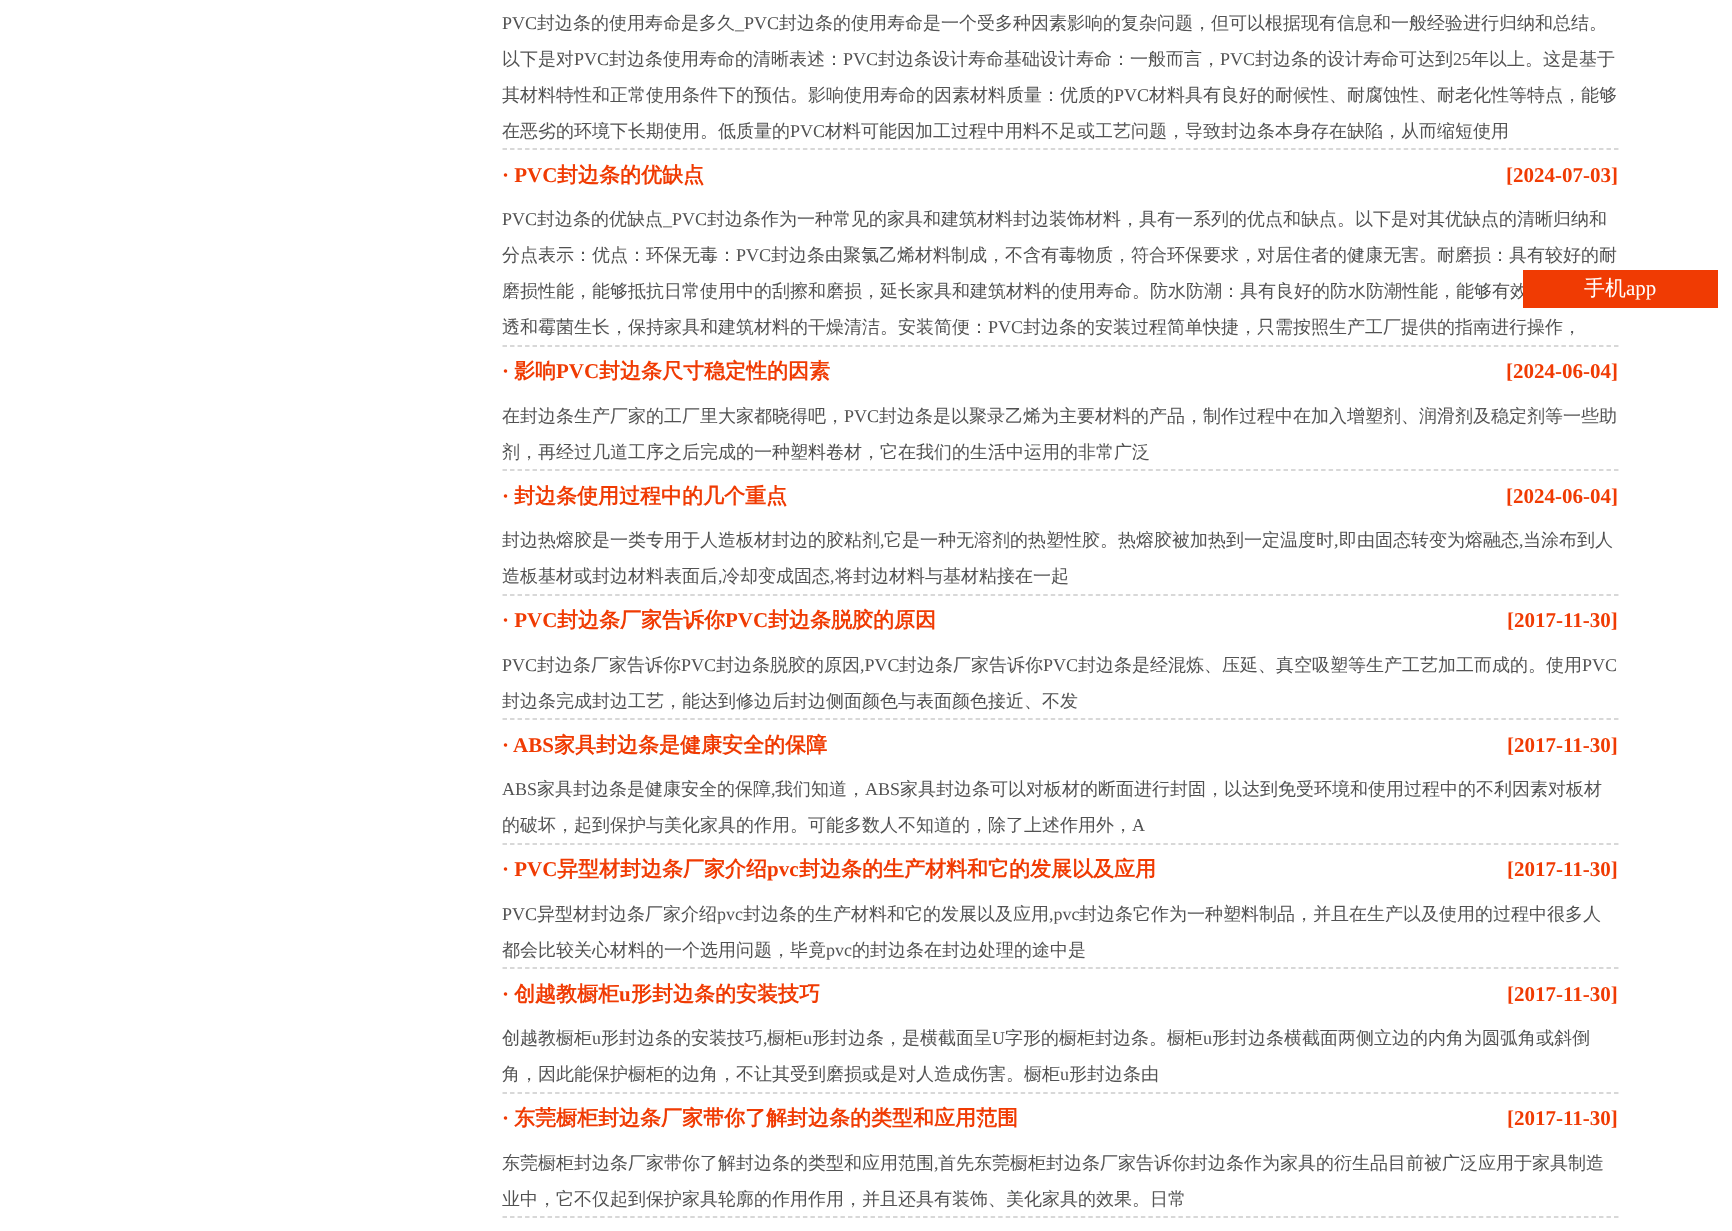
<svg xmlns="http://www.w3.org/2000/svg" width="1732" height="1231">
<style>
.a{font:18px Liberation Serif;fill:#525252}
.b{font:500 18px WenQuanYi Zen Hei;fill:#525252}
.c{font:bold 21px Liberation Serif;fill:#f03b03}
.d{font:bold 21px WenQuanYi Zen Hei;fill:#f03b03}
.e{font:500 21px WenQuanYi Zen Hei;fill:#fff}
.f{font:21px Liberation Serif;fill:#fff}
</style>
<rect width="100%" height="100%" fill="#fff"/>
<path fill="none" stroke="#ccc" stroke-width="1.5" stroke-dasharray="4.5 3.01" d="M502.5 149h1116"/>
<path fill="none" stroke="#ccc" stroke-width="1.5" stroke-dasharray="4.5 3.01" d="M502.5 346h1116"/>
<path fill="none" stroke="#ccc" stroke-width="1.5" stroke-dasharray="4.5 3.01" d="M502.5 470h1116"/>
<path fill="none" stroke="#ccc" stroke-width="1.5" stroke-dasharray="4.5 3.01" d="M502.5 595h1116"/>
<path fill="none" stroke="#ccc" stroke-width="1.5" stroke-dasharray="4.5 3.01" d="M502.5 719h1116"/>
<path fill="none" stroke="#ccc" stroke-width="1.5" stroke-dasharray="4.5 3.01" d="M502.5 844h1116"/>
<path fill="none" stroke="#ccc" stroke-width="1.5" stroke-dasharray="4.5 3.01" d="M502.5 968h1116"/>
<path fill="none" stroke="#ccc" stroke-width="1.5" stroke-dasharray="4.5 3.01" d="M502.5 1093h1116"/>
<path fill="none" stroke="#ccc" stroke-width="1.5" stroke-dasharray="4.5 3.01" d="M502.5 1217h1116"/>
<text class="a" x="502" y="29">PVC</text>
<text class="b" x="537" y="29">封边条的使用寿命是多久</text>
<text class="a" x="735" y="29">_PVC</text>
<text class="b" x="779" y="29">封边条的使用寿命是一个受多种因素影响的复杂问题，但可以根据现有信息和一般经验进行归纳和总结。</text>
<text class="b" x="502" y="65">以下是对</text>
<text class="a" x="574" y="65">PVC</text>
<text class="b" x="609" y="65">封边条使用寿命的清晰表述：</text>
<text class="a" x="843" y="65">PVC</text>
<text class="b" x="878" y="65">封边条设计寿命基础设计寿命：一般而言，</text>
<text class="a" x="1220" y="65">PVC</text>
<text class="b" x="1255" y="65">封边条的设计寿命可达到</text>
<text class="a" x="1453" y="65">25</text>
<text class="b" x="1471" y="65">年以上。这是基于</text>
<text class="b" x="502" y="101">其材料特性和正常使用条件下的预估。影响使用寿命的因素材料质量：优质的</text>
<text class="a" x="1114" y="101">PVC</text>
<text class="b" x="1149" y="101">材料具有良好的耐候性、耐腐蚀性、耐老化性等特点，能够</text>
<text class="b" x="502" y="137">在恶劣的环境下长期使用。低质量的</text>
<text class="a" x="790" y="137">PVC</text>
<text class="b" x="825" y="137">材料可能因加工过程中用料不足或工艺问题，导致封边条本身存在缺陷，从而缩短使用</text>
<text class="c" x="502" y="182">· PVC</text>
<text class="d" x="557" y="182">封边条的优缺点</text>
<text class="c" x="1506" y="182">[2024-07-03]</text>
<text class="a" x="502" y="225">PVC</text>
<text class="b" x="537" y="225">封边条的优缺点</text>
<text class="a" x="663" y="225">_PVC</text>
<text class="b" x="707" y="225">封边条作为一种常见的家具和建筑材料封边装饰材料，具有一系列的优点和缺点。以下是对其优缺点的清晰归纳和</text>
<text class="b" x="502" y="261">分点表示：优点：环保无毒：</text>
<text class="a" x="736" y="261">PVC</text>
<text class="b" x="771" y="261">封边条由聚氯乙烯材料制成，不含有毒物质，符合环保要求，对居住者的健康无害。耐磨损：具有较好的耐</text>
<text class="b" x="502" y="297">磨损性能，能够抵抗日常使用中的刮擦和磨损，延长家具和建筑材料的使用寿命。防水防潮：具有良好的防水防潮性能，能够有效</text>
<text class="b" x="502" y="333">透和霉菌生长，保持家具和建筑材料的干燥清洁。安装简便：</text>
<text class="a" x="988" y="333">PVC</text>
<text class="b" x="1023" y="333">封边条的安装过程简单快捷，只需按照生产工厂提供的指南进行操作，</text>
<text class="c" x="502" y="378">·</text>
<text class="d" x="514" y="378">影响</text>
<text class="c" x="556" y="378">PVC</text>
<text class="d" x="599" y="378">封边条尺寸稳定性的因素</text>
<text class="c" x="1506" y="378">[2024-06-04]</text>
<text class="b" x="502" y="422">在封边条生产厂家的工厂里大家都晓得吧，</text>
<text class="a" x="844" y="422">PVC</text>
<text class="b" x="879" y="422">封边条是以聚录乙烯为主要材料的产品，制作过程中在加入增塑剂、润滑剂及稳定剂等一些助</text>
<text class="b" x="502" y="458">剂，再经过几道工序之后完成的一种塑料卷材，它在我们的生活中运用的非常广泛</text>
<text class="c" x="502" y="503">·</text>
<text class="d" x="514" y="503">封边条使用过程中的几个重点</text>
<text class="c" x="1506" y="503">[2024-06-04]</text>
<text class="b" x="502" y="546">封边热熔胶是一类专用于人造板材封边的胶粘剂</text>
<text class="a" x="880" y="546">,</text>
<text class="b" x="884" y="546">它是一种无溶剂的热塑性胶。热熔胶被加热到一定温度时</text>
<text class="a" x="1334" y="546">,</text>
<text class="b" x="1339" y="546">即由固态转变为熔融态</text>
<text class="a" x="1519" y="546">,</text>
<text class="b" x="1523" y="546">当涂布到人</text>
<text class="b" x="502" y="582">造板基材或封边材料表面后</text>
<text class="a" x="718" y="582">,</text>
<text class="b" x="722" y="582">冷却变成固态</text>
<text class="a" x="830" y="582">,</text>
<text class="b" x="835" y="582">将封边材料与基材粘接在一起</text>
<text class="c" x="502" y="627">· PVC</text>
<text class="d" x="557" y="627">封边条厂家告诉你</text>
<text class="c" x="725" y="627">PVC</text>
<text class="d" x="768" y="627">封边条脱胶的原因</text>
<text class="c" x="1507" y="627">[2017-11-30]</text>
<text class="a" x="502" y="671">PVC</text>
<text class="b" x="537" y="671">封边条厂家告诉你</text>
<text class="a" x="681" y="671">PVC</text>
<text class="b" x="716" y="671">封边条脱胶的原因</text>
<text class="a" x="860" y="671">,PVC</text>
<text class="b" x="899" y="671">封边条厂家告诉你</text>
<text class="a" x="1043" y="671">PVC</text>
<text class="b" x="1078" y="671">封边条是经混炼、压延、真空吸塑等生产工艺加工而成的。使用</text>
<text class="a" x="1582" y="671">PVC</text>
<text class="b" x="502" y="707">封边条完成封边工艺，能达到修边后封边侧面颜色与表面颜色接近、不发</text>
<text class="c" x="502" y="752">·</text>
<text class="c" x="513" y="752">ABS</text>
<text class="d" x="554" y="752">家具封边条是健康安全的保障</text>
<text class="c" x="1507" y="752">[2017-11-30]</text>
<text class="a" x="502" y="795">ABS</text>
<text class="b" x="537" y="795">家具封边条是健康安全的保障</text>
<text class="a" x="771" y="795">,</text>
<text class="b" x="775" y="795">我们知道，</text>
<text class="a" x="865" y="795">ABS</text>
<text class="b" x="900" y="795">家具封边条可以对板材的断面进行封固，以达到免受环境和使用过程中的不利因素对板材</text>
<text class="b" x="502" y="831">的破坏，起到保护与美化家具的作用。可能多数人不知道的，除了上述作用外，</text>
<text class="a" x="1132" y="831">A</text>
<text class="c" x="502" y="876">· PVC</text>
<text class="d" x="557" y="876">异型材封边条厂家介绍</text>
<text class="c" x="767" y="876">pvc</text>
<text class="d" x="799" y="876">封边条的生产材料和它的发展以及应用</text>
<text class="c" x="1507" y="876">[2017-11-30]</text>
<text class="a" x="502" y="920">PVC</text>
<text class="b" x="537" y="920">异型材封边条厂家介绍</text>
<text class="a" x="717" y="920">pvc</text>
<text class="b" x="743" y="920">封边条的生产材料和它的发展以及应用</text>
<text class="a" x="1049" y="920">,pvc</text>
<text class="b" x="1079" y="920">封边条它作为一种塑料制品，并且在生产以及使用的过程中很多人</text>
<text class="b" x="502" y="956">都会比较关心材料的一个选用问题，毕竟</text>
<text class="a" x="826" y="956">pvc</text>
<text class="b" x="852" y="956">的封边条在封边处理的途中是</text>
<text class="c" x="502" y="1001">·</text>
<text class="d" x="514" y="1001">创越教橱柜</text>
<text class="c" x="619" y="1001">u</text>
<text class="d" x="631" y="1001">形封边条的安装技巧</text>
<text class="c" x="1507" y="1001">[2017-11-30]</text>
<text class="b" x="502" y="1044">创越教橱柜</text>
<text class="a" x="592" y="1044">u</text>
<text class="b" x="601" y="1044">形封边条的安装技巧</text>
<text class="a" x="763" y="1044">,</text>
<text class="b" x="767" y="1044">橱柜</text>
<text class="a" x="803" y="1044">u</text>
<text class="b" x="812" y="1044">形封边条，是横截面呈</text>
<text class="a" x="992" y="1044">U</text>
<text class="b" x="1005" y="1044">字形的橱柜封边条。橱柜</text>
<text class="a" x="1203" y="1044">u</text>
<text class="b" x="1212" y="1044">形封边条横截面两侧立边的内角为圆弧角或斜倒</text>
<text class="b" x="502" y="1080">角，因此能保护橱柜的边角，不让其受到磨损或是对人造成伤害。橱柜</text>
<text class="a" x="1060" y="1080">u</text>
<text class="b" x="1069" y="1080">形封边条由</text>
<text class="c" x="502" y="1125">·</text>
<text class="d" x="514" y="1125">东莞橱柜封边条厂家带你了解封边条的类型和应用范围</text>
<text class="c" x="1507" y="1125">[2017-11-30]</text>
<text class="b" x="502" y="1169">东莞橱柜封边条厂家带你了解封边条的类型和应用范围</text>
<text class="a" x="934" y="1169">,</text>
<text class="b" x="938" y="1169">首先东莞橱柜封边条厂家告诉你封边条作为家具的衍生品目前被广泛应用于家具制造</text>
<text class="b" x="502" y="1205">业中，它不仅起到保护家具轮廓的作用作用，并且还具有装饰、美化家具的效果。日常</text>
<path fill="#f03b03" d="M1523 270h195v38H1523z"/>
<text class="e" x="1584" y="295">手机</text>
<text class="f" x="1626" y="295">app</text>
</svg>
